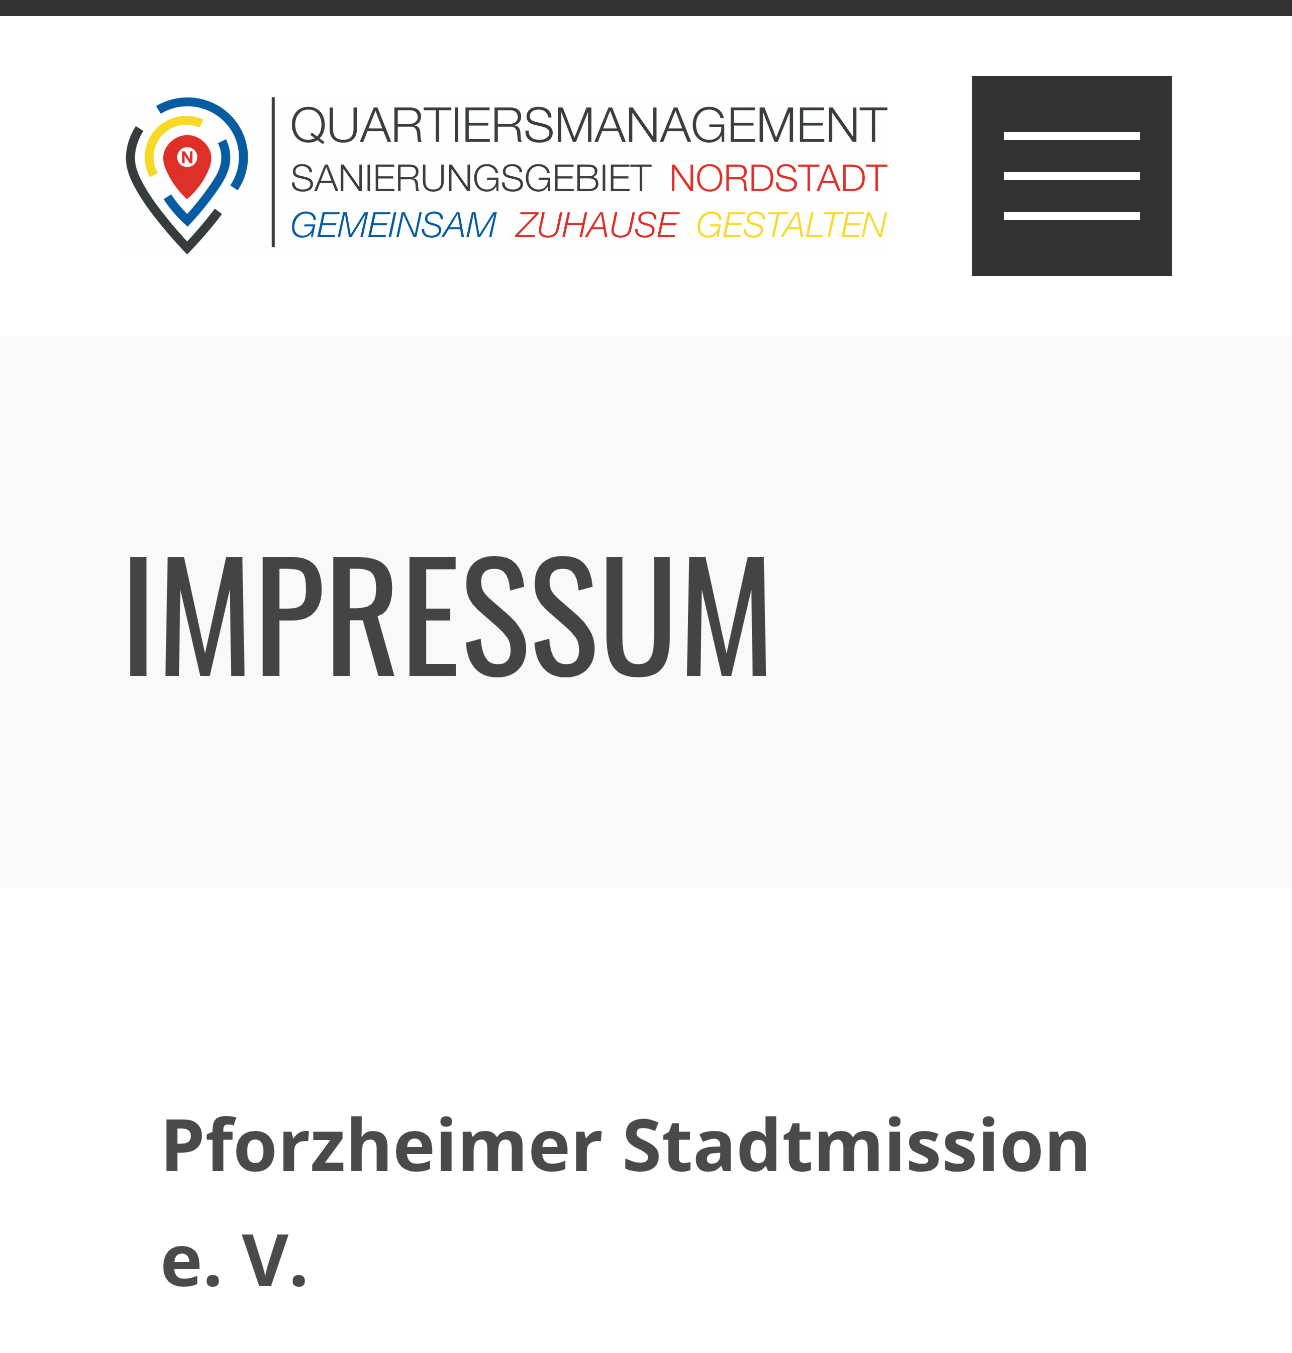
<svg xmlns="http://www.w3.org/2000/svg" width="1292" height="1353">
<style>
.a{font:147px Oswald;fill:#444}
.b{font:bold 72px Open Sans;fill:#4a4a4a}
</style>
<rect width="100%" height="100%" fill="#fff"/>
<path fill="#333" d="M0 0h1292v16H0z"/>
<image href="1.png" x="125" y="97" width="763" height="158"/>
<path fill="#333" d="M972 76h200v200H972z"/>
<path fill="#fff" d="M1004 132h136v8H1004z"/>
<path fill="#fff" d="M1004 212h136v8H1004z"/>
<path fill="#fff" d="M1004 172h136v8H1004z"/>
<path fill="#f9f9f9" d="M0 336h1292v552H0z"/>
<text class="a" x="120" y="676">IMPRESSUM</text>
<text class="b" x="160" y="1171">Pforzheimer Stadtmission</text>
<text class="b" x="160" y="1286">e. V.</text>
</svg>
